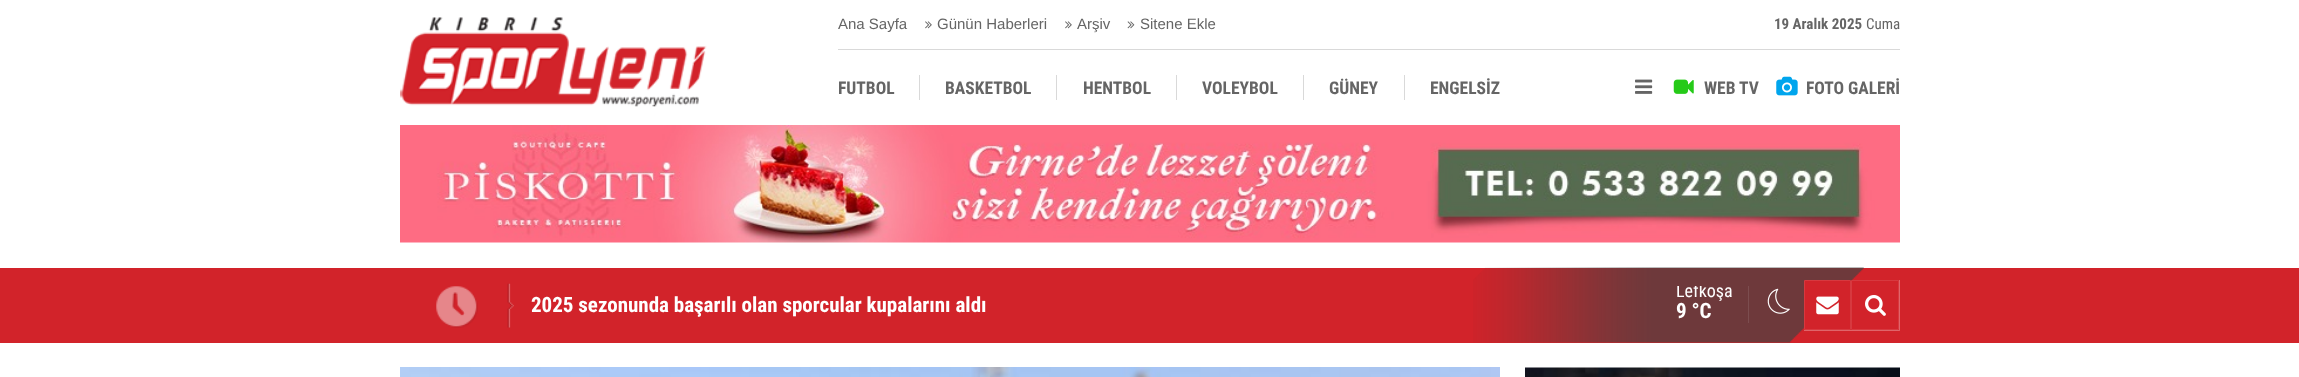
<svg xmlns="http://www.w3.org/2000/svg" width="2299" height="377">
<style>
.a{font:15px Liberation Sans;fill:#656565}
.b{font:bold 15px Roboto Condensed;fill:#656565}
.c{font:15px Roboto Condensed;fill:#656565}
.d{font:bold 17.5px Roboto Condensed;fill:#656565}
.e{font:bold 21px Roboto Condensed;fill:#fff}
.f{font:18px Roboto Condensed;fill:#fff}
</style>
<defs>
<clipPath id="clip1"><path d="M1676 286h73v37H1676z"/></clipPath>
</defs>
<rect width="100%" height="100%" fill="#fff"/>
<image href="1.png" x="400" y="17" width="307" height="90"/>
<path fill="#d9d9d9" d="M838 49h1062v1H838z"/>
<image href="2.png" x="925" y="21" width="7" height="8"/>
<image href="2.png" x="1065" y="21" width="7" height="8"/>
<image href="3.png" x="1127" y="21" width="8" height="8"/>
<path fill="#d9d9d9" d="M919 75h1v25H919z"/>
<path fill="#d9d9d9" d="M1056 75h1v25H1056z"/>
<path fill="#d9d9d9" d="M1176 75h1v25H1176z"/>
<path fill="#d9d9d9" d="M1303 75h1v25H1303z"/>
<path fill="#d9d9d9" d="M1404 75h1v25H1404z"/>
<image href="4.png" x="1635" y="79" width="18" height="15"/>
<image href="5.png" x="1673" y="79" width="21" height="15"/>
<image href="6.png" x="1776" y="76" width="22" height="20"/>
<image href="7.png" x="400" y="125" width="1500" height="118"/>
<path fill="#d2232a" d="M0 268h2299v75H0z"/>
<image href="8.png" x="1473" y="267" width="391" height="76"/>
<image href="9.png" x="436" y="283" width="78" height="45"/>
<path fill="#7c4d4f" d="M1748 286h1v37H1748z"/>
<image href="10.png" x="1767" y="288" width="23" height="26"/>
<path fill="#e0656a" d="M1900 280v51l-1-1v-50z"/>
<path fill="#ffffff4d" d="M1900 331h-96v-1h95z"/>
<path fill="#d2232a" d="M1805 281h45v47H1805z"/>
<path fill="none" stroke="#d7393f" d="M1804.5 280.5h46v49H1804.5z"/>
<image href="11.png" x="1816" y="296" width="23" height="19"/>
<path fill="none" stroke="#d7393f" d="M1851.5 280.5h47v49H1851.5z"/>
<image href="12.png" x="1865" y="295" width="21" height="21"/>
<image href="13.png" x="400" y="367" width="1100" height="10"/>
<image href="14.png" x="1525" y="367" width="375" height="10"/>
<text class="a" x="838" y="29">Ana Sayfa</text>
<text class="a" x="937" y="29">Günün Haberleri</text>
<text class="a" x="1077" y="29">Arşiv</text>
<text class="a" x="1140" y="29">Sitene Ekle</text>
<text class="b" x="1774" y="29">19 Aralık 2025</text>
<text class="c" x="1866" y="29">Cuma</text>
<text class="d" x="838" y="94">FUTBOL</text>
<text class="d" x="945" y="94">BASKETBOL</text>
<text class="d" x="1083" y="94">HENTBOL</text>
<text class="d" x="1202" y="94">VOLEYBOL</text>
<text class="d" x="1329" y="94">GÜNEY</text>
<text class="d" x="1430" y="94">ENGELSİZ</text>
<text class="d" x="1704" y="94">WEB TV</text>
<text class="d" x="1806" y="94">FOTO GALERİ</text>
<text class="e" x="531" y="312">2025 sezonunda başarılı olan sporcular kupalarını aldı</text>
<g clip-path="url(#clip1)">
<text class="f" x="1676" y="297">Lefkoşa</text>
</g>
<text class="e" x="1676" y="318">9 °C</text>
</svg>
